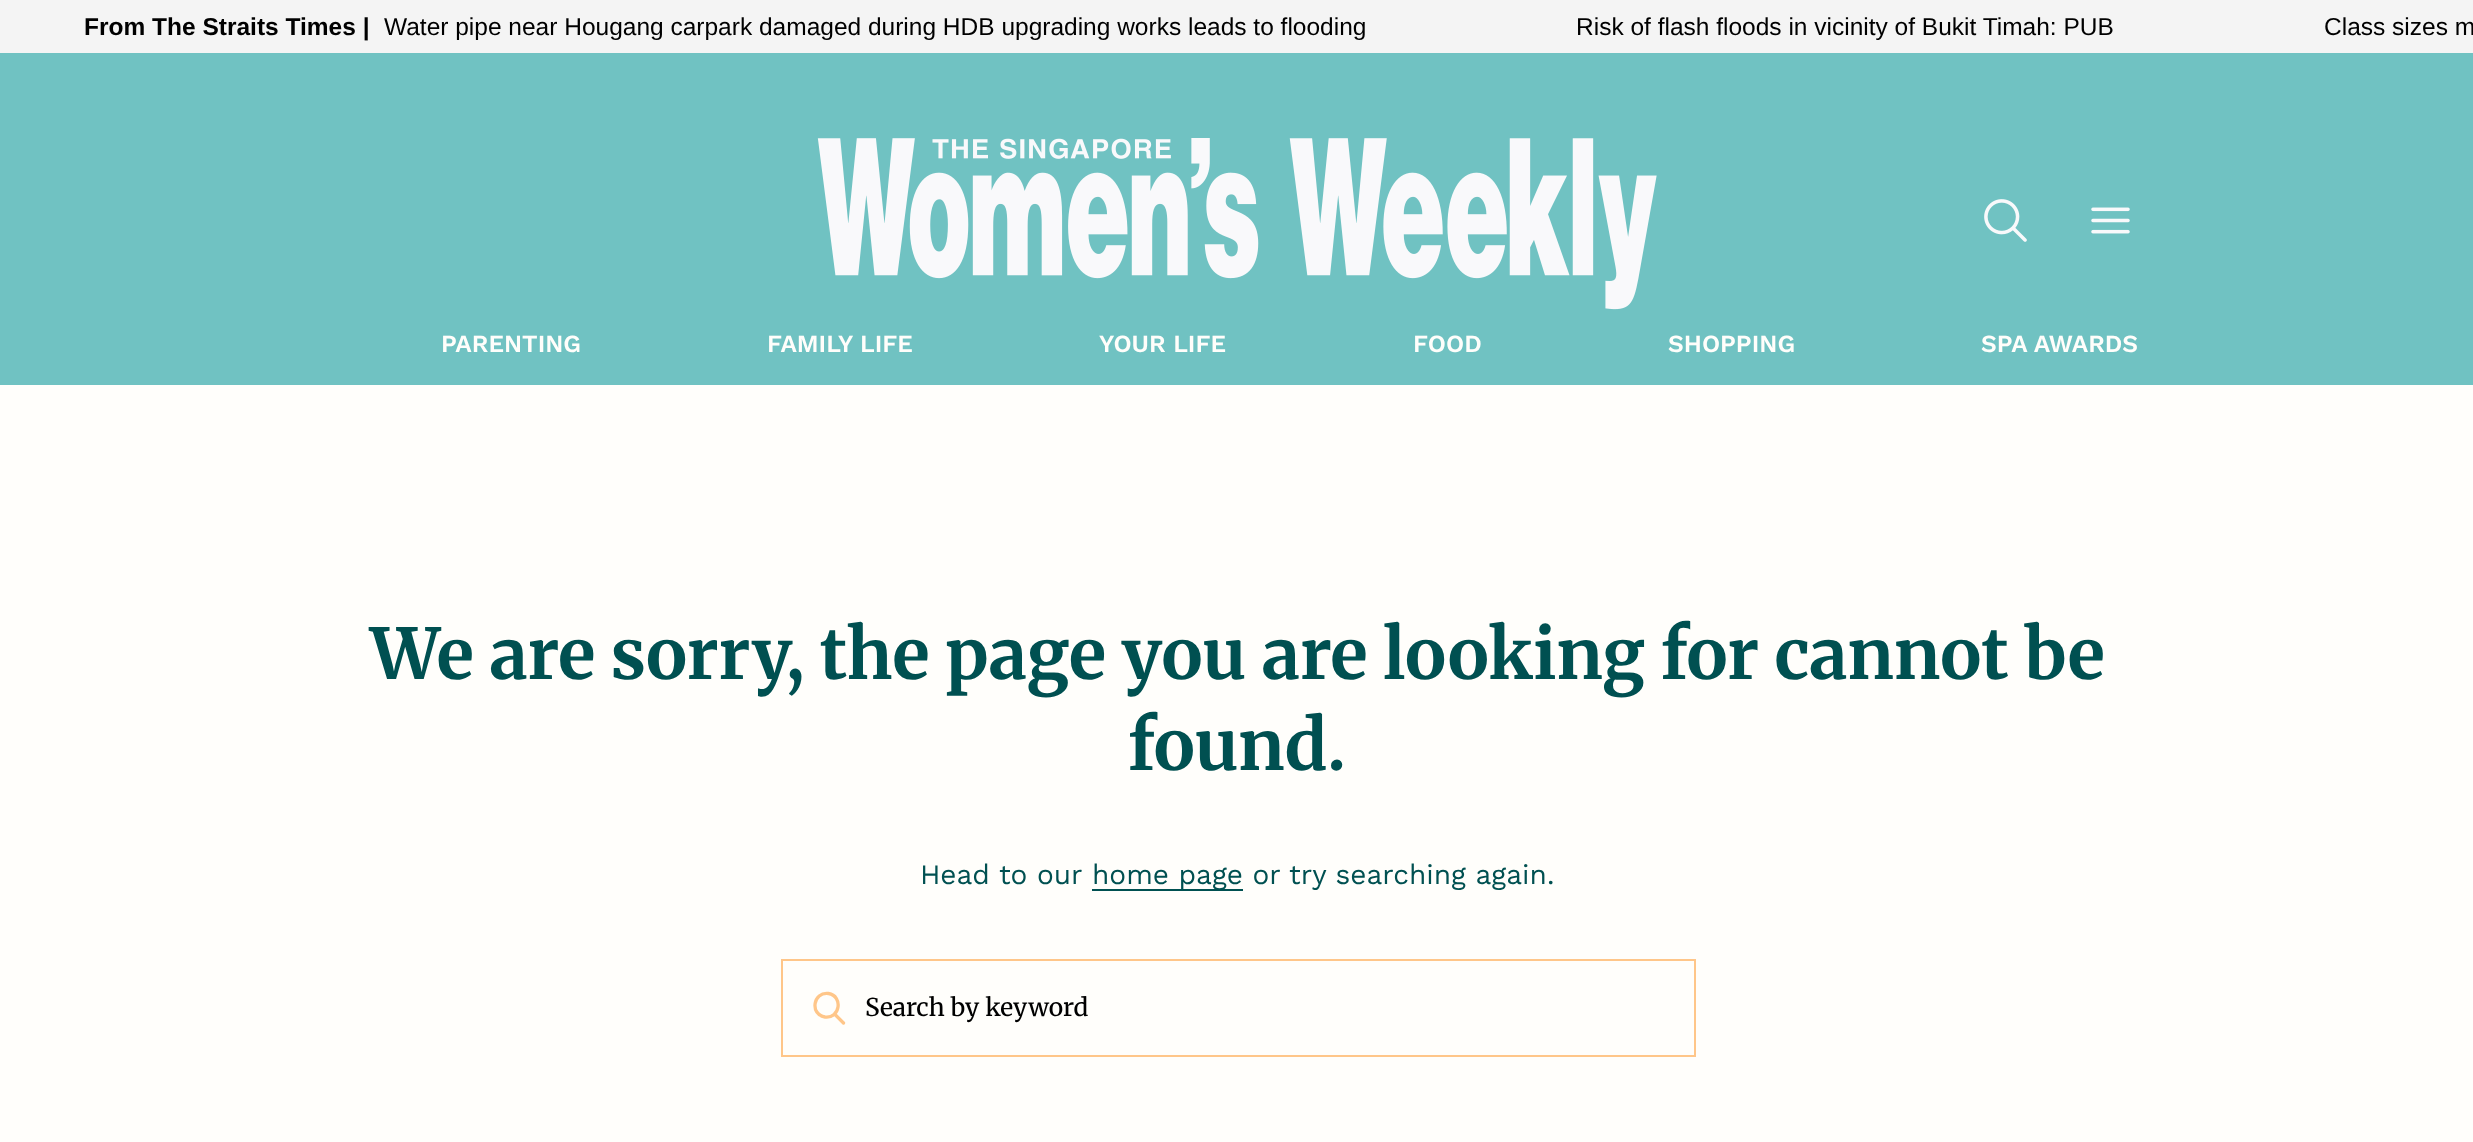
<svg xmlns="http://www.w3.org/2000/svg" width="2473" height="1142">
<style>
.a{font:bold 24.5px Liberation Sans;fill:#000}
.b{font:24.5px Liberation Sans;fill:#000}
.c{font:600 24.5px Work Sans;fill:#fffefb}
.d{font:bold 70px Merriweather;fill:#005051}
.e{font:28px Work Sans;fill:#005051}
.f{font:500 24.5px Merriweather;fill:#000}
</style>
<rect width="100%" height="100%" fill="#fffefb"/>
<path fill="#f4f4f4" d="M0 0h2473v53H0z"/>
<path fill="#70c2c2" d="M0 53h2473v332H0z"/>
<image href="1.png" x="817" y="138" width="840" height="172"/>
<image href="2.png" x="1984" y="199" width="43" height="43"/>
<image href="3.png" x="2091" y="207" width="39" height="27"/>
<path fill="#005051" d="M1092 889h151v2H1092z"/>
<path fill="none" stroke="#ffc689" stroke-width="2" d="M782 960h913v96H782z"/>
<path fill="none" stroke="#ffc689" stroke-width="3.3" stroke-linecap="round" d="M828.5 993.5c15 2.5 11.5 25.5-3.5 23.5c-15.5-2.5-12-25.5 3.5-23.5zm6 20.5l9 9"/>
<text class="a" x="84" y="35">From The Straits Times |</text>
<text class="b" x="384" y="35">Water pipe near Hougang carpark damaged during HDB upgrading works leads to flooding</text>
<text class="b" x="1576" y="35">Risk of flash floods in vicinity of Bukit Timah: PUB</text>
<text class="b" x="2324" y="35">Class sizes m</text>
<text class="c" x="441" y="352">PARENTING</text>
<text class="c" x="767" y="352">FAMILY LIFE</text>
<text class="c" x="1099" y="352">YOUR LIFE</text>
<text class="c" x="1413" y="352">FOOD</text>
<text class="c" x="1668" y="352">SHOPPING</text>
<text class="c" x="1981" y="352">SPA AWARDS</text>
<text class="d" x="370" y="679">We are sorry, the page you are looking for cannot be</text>
<text class="d" x="1128" y="770">found.</text>
<text class="e" x="920" y="884">Head to our</text>
<text class="e" x="1092" y="884">home page or try searching again.</text>
<text class="f" x="865" y="1016">Search by keyword</text>
</svg>
